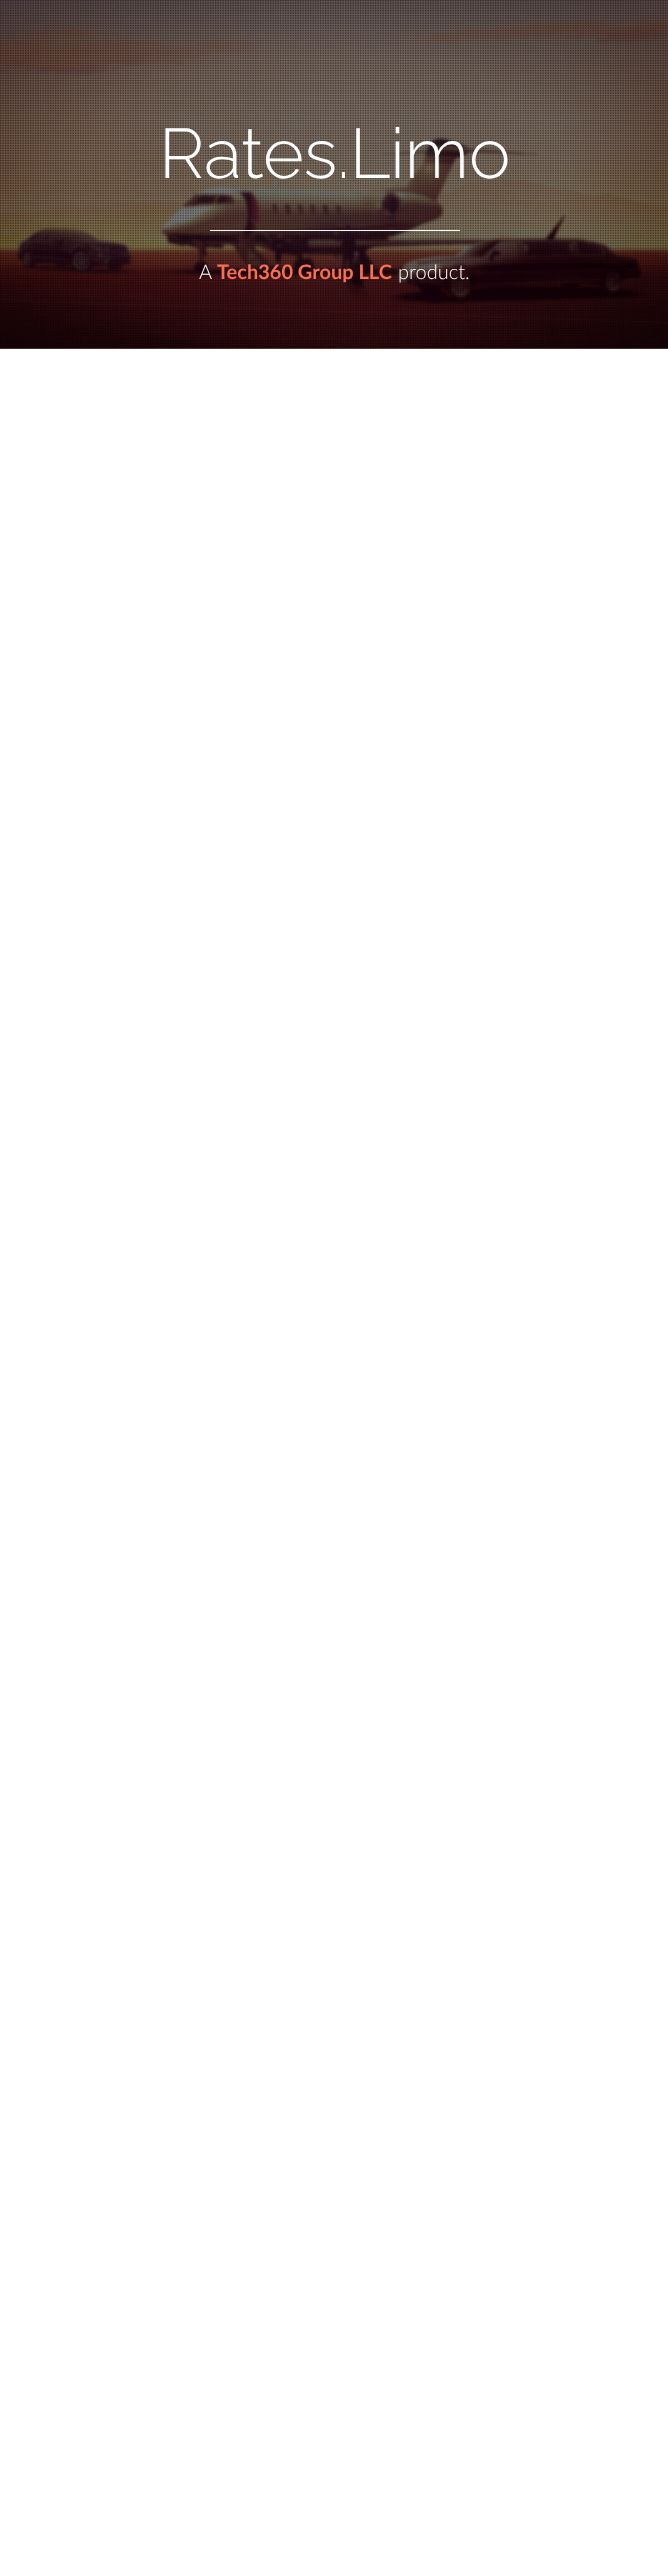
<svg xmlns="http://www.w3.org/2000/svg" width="668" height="2550">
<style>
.a{font:300 70px Raleway;fill:#fff}
.b{font:300 20px Lato;fill:#fff}
.c{font:bold 20px Lato;fill:#fc6e51}
</style>
<rect width="100%" height="100%" fill="#fff"/>
<image href="1.png" x="0" y="0" width="668" height="349"/>
<image href="2.png" x="0" y="0" width="668" height="349"/>
<path fill="#fff" d="M210 230h250v1H210z"/>
<text class="a" x="159" y="178">Rates.Limo</text>
<text class="b" x="199" y="279">A</text>
<text class="c" x="217" y="279">Tech360 Group LLC</text>
<text class="b" x="398" y="279">product.</text>
</svg>
